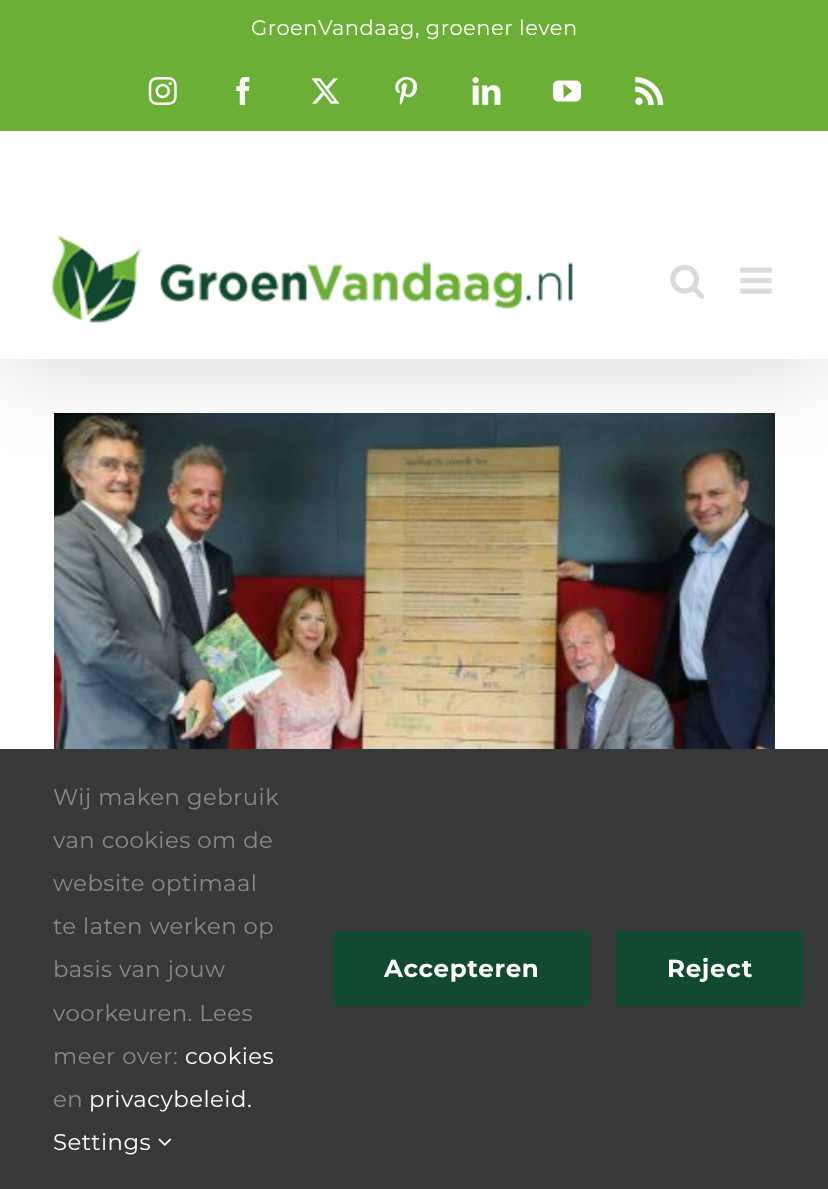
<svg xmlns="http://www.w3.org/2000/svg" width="828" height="1189">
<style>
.a{font:21px Montserrat;letter-spacing:0.5px;fill:#fff}
.b{font:22.75px Montserrat;letter-spacing:0.5px;fill:#8c8989}
.c{font:22.75px Montserrat;letter-spacing:0.5px;fill:#fff}
.d{font:bold 24.5px Montserrat;letter-spacing:0.75px;fill:#fff}
</style>
<rect width="100%" height="100%" fill="#fff"/>
<image href="11.png" x="54" y="413" width="721" height="336"/>
<path fill="#00000024" filter="blur(44px)" d="M4 21h822v352H4z"/>
<path fill="#6baf36" d="M0 0h828v131H0z"/>
<image href="1.png" x="148" y="77" width="29" height="28"/>
<image href="2.png" x="236" y="77" width="14" height="28"/>
<image href="3.png" x="311" y="78" width="29" height="26"/>
<image href="4.png" x="395" y="77" width="23" height="28"/>
<image href="5.png" x="472" y="77" width="29" height="28"/>
<image href="6.png" x="553" y="80" width="28" height="22"/>
<image href="7.png" x="635" y="77" width="29" height="28"/>
<path fill="#fff" d="M0 131h828v228H0z"/>
<image href="8.png" x="52" y="236" width="521" height="87"/>
<image href="9.png" x="670" y="264" width="35" height="35"/>
<image href="10.png" x="740" y="267" width="32" height="27"/>
<path fill="#363839" d="M0 749h828v440H0z"/>
<image href="12.png" x="158" y="1138" width="14" height="8"/>
<path fill="#124a2f" d="M333 931h257v75H333z"/>
<path fill="#124a2f" d="M616 931h187v75H616z"/>
<text class="a" x="251" y="35">GroenVandaag, groener leven</text>
<text class="b" x="53" y="805">Wij maken gebruik</text>
<text class="b" x="53" y="848">van cookies om de</text>
<text class="b" x="53" y="891">website optimaal</text>
<text class="b" x="53" y="934">te laten werken op</text>
<text class="b" x="53" y="977">basis van jouw</text>
<text class="b" x="53" y="1021">voorkeuren. Lees</text>
<text class="b" x="53" y="1064">meer over:</text>
<text class="c" x="185" y="1064">cookies</text>
<text class="b" x="53" y="1107">en</text>
<text class="c" x="89" y="1107">privacybeleid.</text>
<text class="c" x="53" y="1150">Settings</text>
<text class="d" x="384" y="977">Accepteren</text>
<text class="d" x="667" y="977">Reject</text>
</svg>
